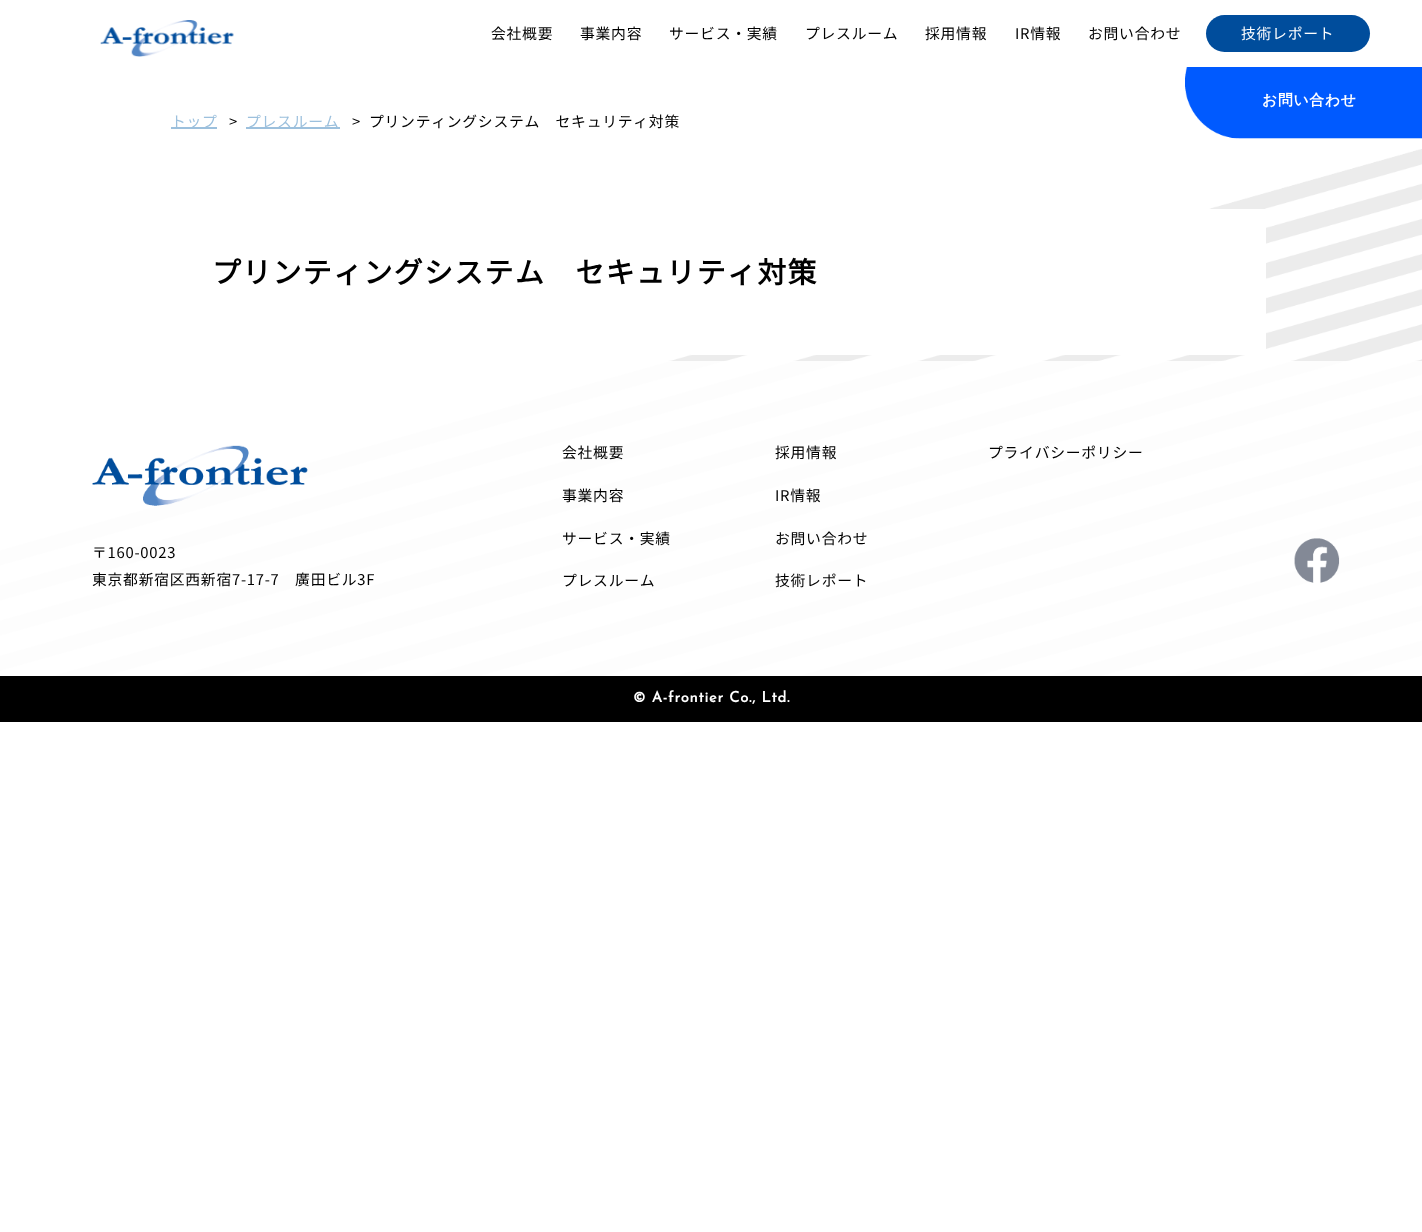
<svg xmlns="http://www.w3.org/2000/svg" width="1422" height="1232">
<style>*{font-kerning:none!important;font-variant-ligatures:none!important}</style>
<style>
.a{font:100 14.8px Noto Sans JP;letter-spacing:0.75px;fill:#000}
.b{font:100 14.8px Noto Sans JP;letter-spacing:0.75px;fill:#fff}
.c{font:bold 14.8px WenQuanYi Zen Hei;letter-spacing:0.75px;fill:#fff}
.d{font:100 14.8px Noto Sans JP;letter-spacing:0.75px;fill:#9cc0dd}
.e{font:bold 28.9px Noto Sans JP;letter-spacing:1.4px;fill:#000}
.f{font:bold 14.8px Josefin Sans;letter-spacing:0.75px;fill:#fff}
</style>
<rect width="100%" height="100%" fill="#fff"/>
<image href="1.png" x="0" y="149" width="1422" height="527"/>
<image href="2.png" x="100" y="20" width="134" height="37"/>
<rect fill="#004d9c" x="1206" y="15" width="164" height="37" rx="18.5"/>
<image href="3.png" x="1185" y="67" width="237" height="72"/>
<path fill="#9cc0dd" d="M171 127h46v2H171z"/>
<path fill="#9cc0dd" d="M246 127h94v2H246z"/>
<path fill="#fff" d="M691 209h575v146H691z"/>
<path fill="#ffffffe6" d="M0 361h1422v315H0z"/>
<image href="4.png" x="92" y="445" width="216" height="61"/>
<image href="5.png" x="1294" y="538" width="46" height="45"/>
<path fill="#000" d="M0 676h1422v46H0z"/>
<text class="a" x="491" y="39">会社概要</text>
<text class="a" x="580" y="39">事業内容</text>
<text class="a" x="669" y="39">サービス・実績</text>
<text class="a" x="805" y="39">プレスルーム</text>
<text class="a" x="925" y="39">採用情報</text>
<text class="a" x="1015" y="39">IR情報</text>
<text class="a" x="1088" y="39">お問い合わせ</text>
<text class="b" x="1241" y="39">技術レポート</text>
<text class="c" x="1262" y="105">お問い合わせ</text>
<text class="d" x="171" y="127">トップ</text>
<text class="a" x="229" y="127">&gt;</text>
<text class="d" x="246" y="127">プレスルーム</text>
<text class="a" x="352" y="127">&gt;</text>
<text class="a" x="369" y="127">プリンティングシステム　セキュリティ対策</text>
<text class="e" x="212" y="283">プリンティングシステム　セキュリティ対策</text>
<text class="a" x="92" y="558">〒160-0023</text>
<text class="a" x="92" y="585">東京都新宿区西新宿7-17-7 廣田ビル3F</text>
<text class="a" x="562" y="458">会社概要</text>
<text class="a" x="562" y="501">事業内容</text>
<text class="a" x="562" y="544">サービス・実績</text>
<text class="a" x="562" y="586">プレスルーム</text>
<text class="a" x="775" y="458">採用情報</text>
<text class="a" x="775" y="501">IR情報</text>
<text class="a" x="775" y="544">お問い合わせ</text>
<text class="a" x="775" y="586">技術レポート</text>
<text class="a" x="988" y="458">プライバシーポリシー</text>
<text class="f" x="633" y="702">© A-frontier Co., Ltd.</text>
</svg>
